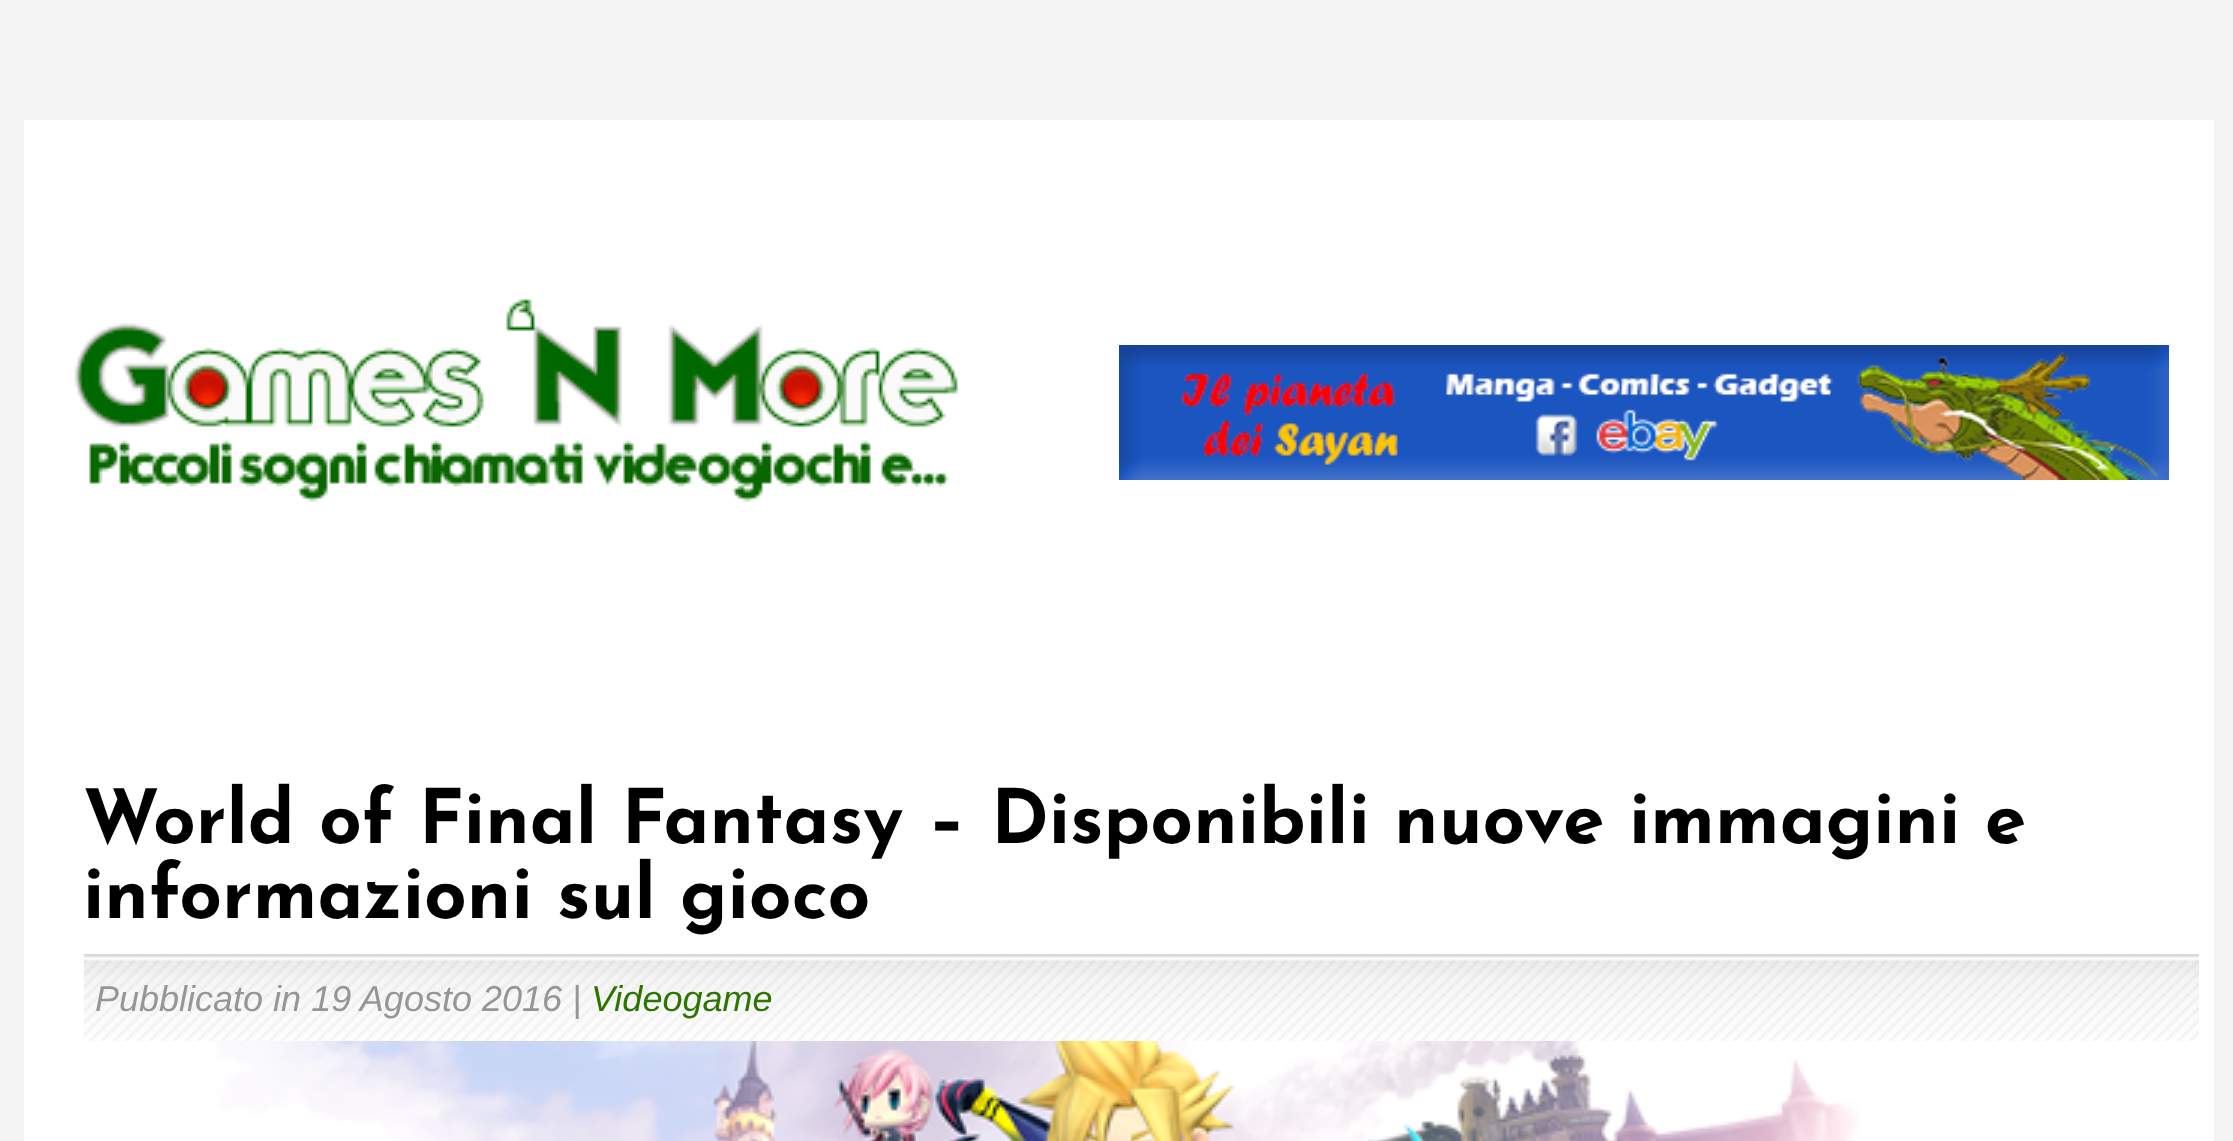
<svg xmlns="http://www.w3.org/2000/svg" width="2233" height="1141">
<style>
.a{font:100 75px Josefin Sans;fill:#000}
.b{font:italic 36px Liberation Sans;fill:#969696}
.c{font:italic 36px Liberation Sans;fill:#2c7600}
</style>
<rect width="100%" height="100%" fill="#f3f3f3"/>
<path fill="#fff" d="M24 120h2190v1021H24z"/>
<image href="1.png" x="74" y="299" width="884" height="203"/>
<image href="2.png" x="1119" y="345" width="1050" height="135"/>
<image href="3.png" x="84" y="954" width="2115" height="87"/>
<image href="4.png" x="216" y="1041" width="1645" height="100"/>
<text class="a" x="83" y="843">World of Final Fantasy – Disponibili nuove immagini e</text>
<text class="a" x="83" y="918">informazioni sul gioco</text>
<text class="b" x="95" y="1011">Pubblicato in 19 Agosto 2016 |</text>
<text class="c" x="591" y="1011">Videogame</text>
</svg>
